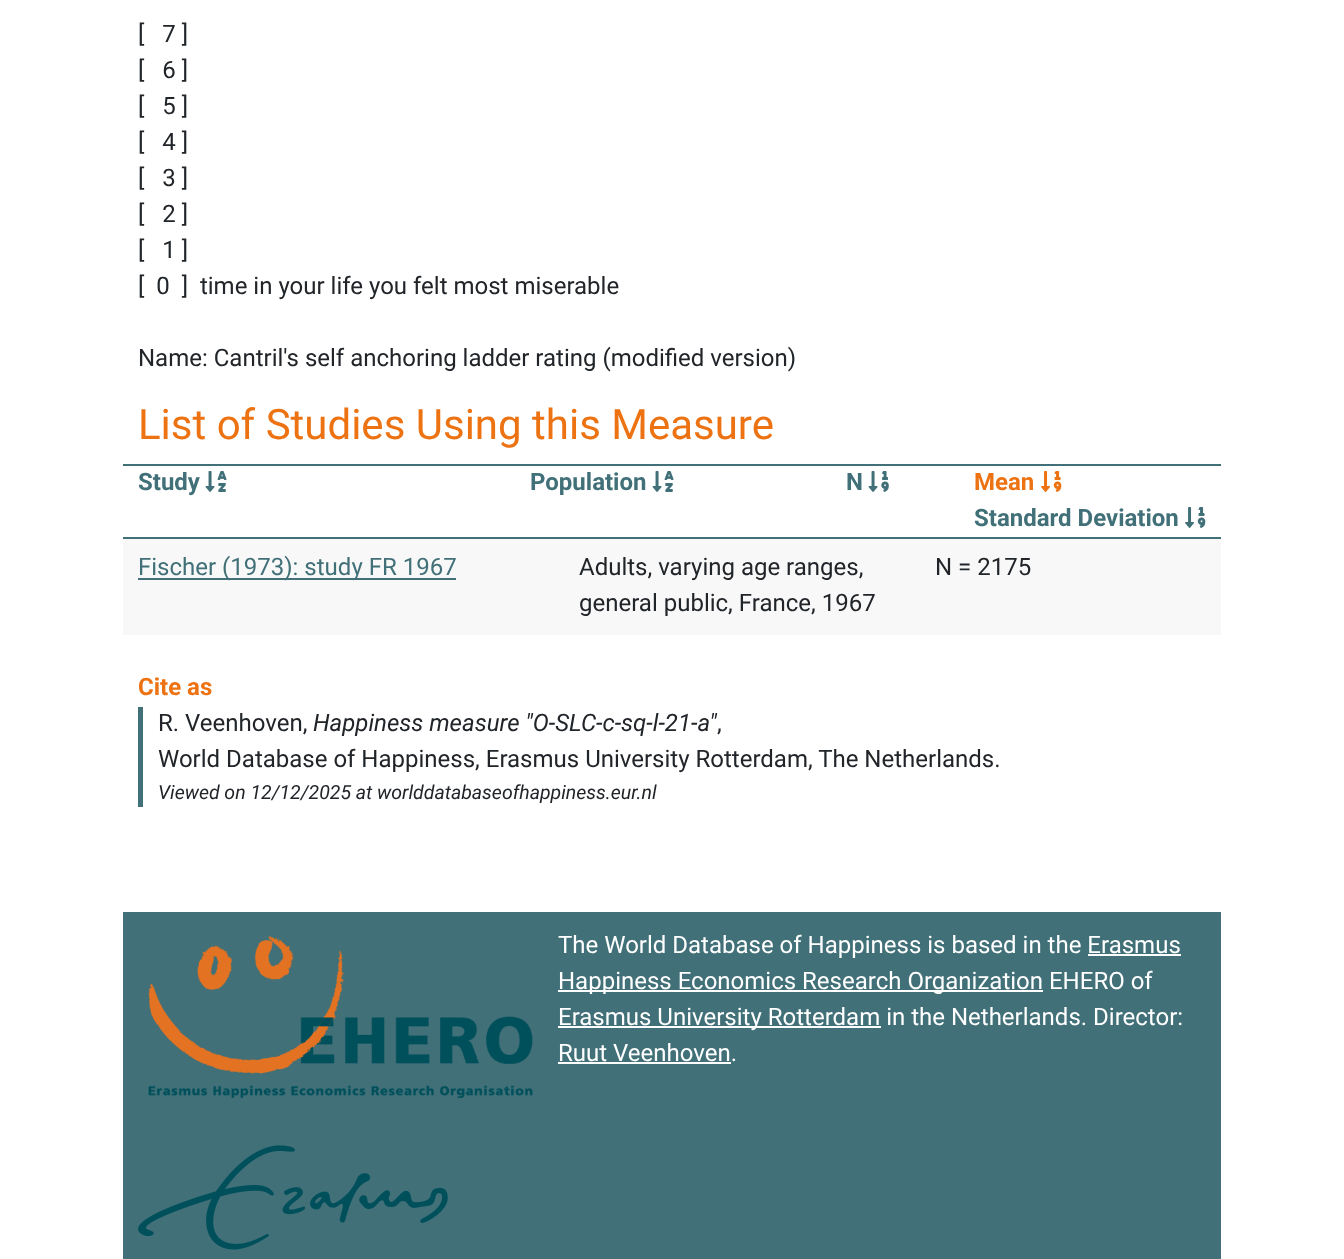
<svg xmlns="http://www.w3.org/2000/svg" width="1344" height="1259">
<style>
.a{font:24px Roboto;fill:#212529}
.b{font:42px Roboto;fill:#ed7212}
.c{font:bold 24px Roboto;fill:#417078}
.d{font:bold 24px Roboto;fill:#ed7212}
.e{font:24px Roboto;fill:#417078}
.f{font:italic 24px Roboto;fill:#212529}
.g{font:italic 19.5px Roboto;fill:#212529}
.h{font:24px Roboto;fill:#fff}
</style>
<rect width="100%" height="100%" fill="#fff"/>
<path fill="#417078" d="M123 464h1098v2H123z"/>
<path fill="#417078" d="M123 537h1098v2H123z"/>
<image href="1.png" x="205" y="471" width="22" height="21"/>
<image href="1.png" x="652" y="471" width="22" height="21"/>
<image href="2.png" x="868" y="471" width="21" height="21"/>
<image href="3.png" x="1041" y="471" width="21" height="21"/>
<image href="4.png" x="1185" y="507" width="21" height="21"/>
<path fill="#f8f8f8" d="M123 539h1098v96H123z"/>
<path fill="#417078" d="M138 578h318v2H138z"/>
<path fill="#417078" d="M138 707h5v100H138z"/>
<path fill="#417078" d="M123 912h1098v347H123z"/>
<image href="5.png" x="148" y="936" width="385" height="162"/>
<path fill="#fff" d="M1088 954h93v2H1088z"/>
<path fill="#fff" d="M558 990h485v2H558z"/>
<path fill="#fff" d="M558 1026h323v2H558z"/>
<path fill="#fff" d="M558 1062h173v2H558z"/>
<image href="6.png" x="138" y="1145" width="310" height="105"/>
<text class="a" xml:space="preserve" x="138" y="42">[   7 ]</text>
<text class="a" xml:space="preserve" x="138" y="78">[   6 ]</text>
<text class="a" xml:space="preserve" x="138" y="114">[   5 ]</text>
<text class="a" xml:space="preserve" x="138" y="150">[   4 ]</text>
<text class="a" xml:space="preserve" x="138" y="186">[   3 ]</text>
<text class="a" xml:space="preserve" x="138" y="222">[   2 ]</text>
<text class="a" xml:space="preserve" x="138" y="258">[   1 ]</text>
<text class="a" xml:space="preserve" x="138" y="294">[  0  ]  time in your life you felt most miserable</text>
<text class="a" x="138" y="366">Name: Cantril's self anchoring ladder rating (modified version)</text>
<text class="b" x="138" y="439">List of Studies Using this Measure</text>
<text class="c" x="138" y="490">Study</text>
<text class="c" x="530" y="490">Population</text>
<text class="c" x="846" y="490">N</text>
<text class="d" x="974" y="490">Mean</text>
<text class="c" x="974" y="526">Standard Deviation</text>
<text class="e" x="138" y="575">Fischer (1973): study FR 1967</text>
<text class="a" x="579" y="575">Adults, varying age ranges,</text>
<text class="a" x="579" y="611">general public, France, 1967</text>
<text class="a" x="935" y="575">N = 2175</text>
<text class="d" x="138" y="695">Cite as</text>
<text class="a" x="158" y="731">R. Veenhoven,</text>
<text class="f" x="313" y="731">Happiness measure "O-SLC-c-sq-l-21-a"</text>
<text class="a" x="717" y="731">,</text>
<text class="a" x="158" y="767">World Database of Happiness, Erasmus University Rotterdam, The Netherlands.</text>
<text class="g" x="158" y="799">Viewed on 12/12/2025 at worlddatabaseofhappiness.eur.nl</text>
<text class="h" x="558" y="953">The World Database of Happiness is based in the Erasmus</text>
<text class="h" x="558" y="989">Happiness Economics Research Organization EHERO of</text>
<text class="h" x="558" y="1025">Erasmus University Rotterdam in the Netherlands. Director:</text>
<text class="h" x="558" y="1061">Ruut Veenhoven.</text>
</svg>
